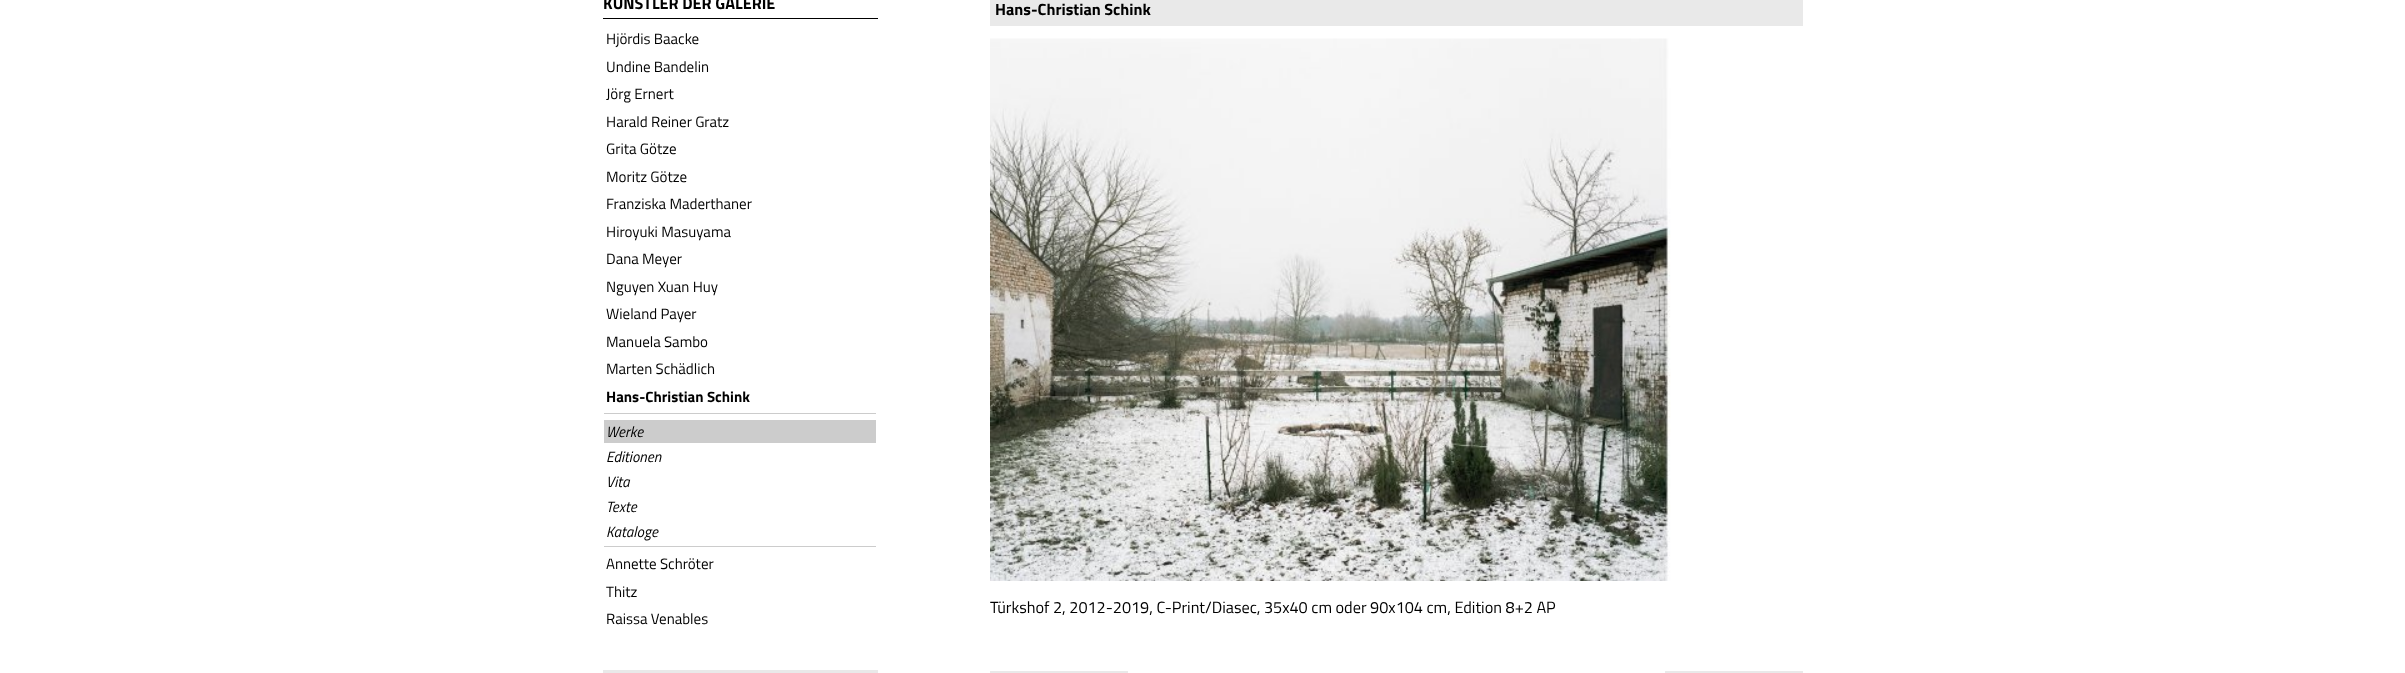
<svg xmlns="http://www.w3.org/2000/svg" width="2405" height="673">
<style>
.a{font:bold 16.25px Titillium Web;fill:#000}
.b{font:15px Titillium Web;fill:#000}
.c{font:bold 15px Titillium Web;fill:#000}
.d{font:italic 15px Titillium Web;fill:#000}
.e{font:16.25px Titillium Web;fill:#000}
</style>
<rect width="100%" height="100%" fill="#fff"/>
<path fill="#000" d="M603 18h275v1H603z"/>
<path fill="#ccc" d="M604 413h272v1H604z"/>
<path fill="#ccc" d="M604 546h272v1H604z"/>
<path fill="#ccc" d="M604 420h272v23H604z"/>
<path fill="#e9e9e9" d="M603 670h275v3H603z"/>
<path fill="#e9e9e9" d="M990 0h813v26H990z"/>
<image href="1.png" x="990" y="38" width="681" height="543"/>
<path fill="#e9e9e9" d="M990 671h138v2H990z"/>
<path fill="#e9e9e9" d="M1665 671h138v2H1665z"/>
<text class="a" x="603" y="9">KÜNSTLER DER GALERIE</text>
<text class="b" x="606" y="44">Hjördis Baacke</text>
<text class="b" x="606" y="72">Undine Bandelin</text>
<text class="b" x="606" y="99">Jörg Ernert</text>
<text class="b" x="606" y="127">Harald Reiner Gratz</text>
<text class="b" x="606" y="154">Grita Götze</text>
<text class="b" x="606" y="182">Moritz Götze</text>
<text class="b" x="606" y="209">Franziska Maderthaner</text>
<text class="b" x="606" y="237">Hiroyuki Masuyama</text>
<text class="b" x="606" y="264">Dana Meyer</text>
<text class="b" x="606" y="292">Nguyen Xuan Huy</text>
<text class="b" x="606" y="319">Wieland Payer</text>
<text class="b" x="606" y="347">Manuela Sambo</text>
<text class="b" x="606" y="374">Marten Schädlich</text>
<text class="c" x="606" y="402">Hans-Christian Schink</text>
<text class="d" x="606" y="437">Werke</text>
<text class="d" x="606" y="462">Editionen</text>
<text class="d" x="606" y="487">Vita</text>
<text class="d" x="606" y="512">Texte</text>
<text class="d" x="606" y="537">Kataloge</text>
<text class="b" x="606" y="569">Annette Schröter</text>
<text class="b" x="606" y="597">Thitz</text>
<text class="b" x="606" y="624">Raissa Venables</text>
<text class="a" x="995" y="15">Hans-Christian Schink</text>
<text class="e" x="990" y="613">Türkshof 2, 2012-2019, C-Print/Diasec, 35x40 cm oder 90x104 cm, Edition 8+2 AP</text>
</svg>
